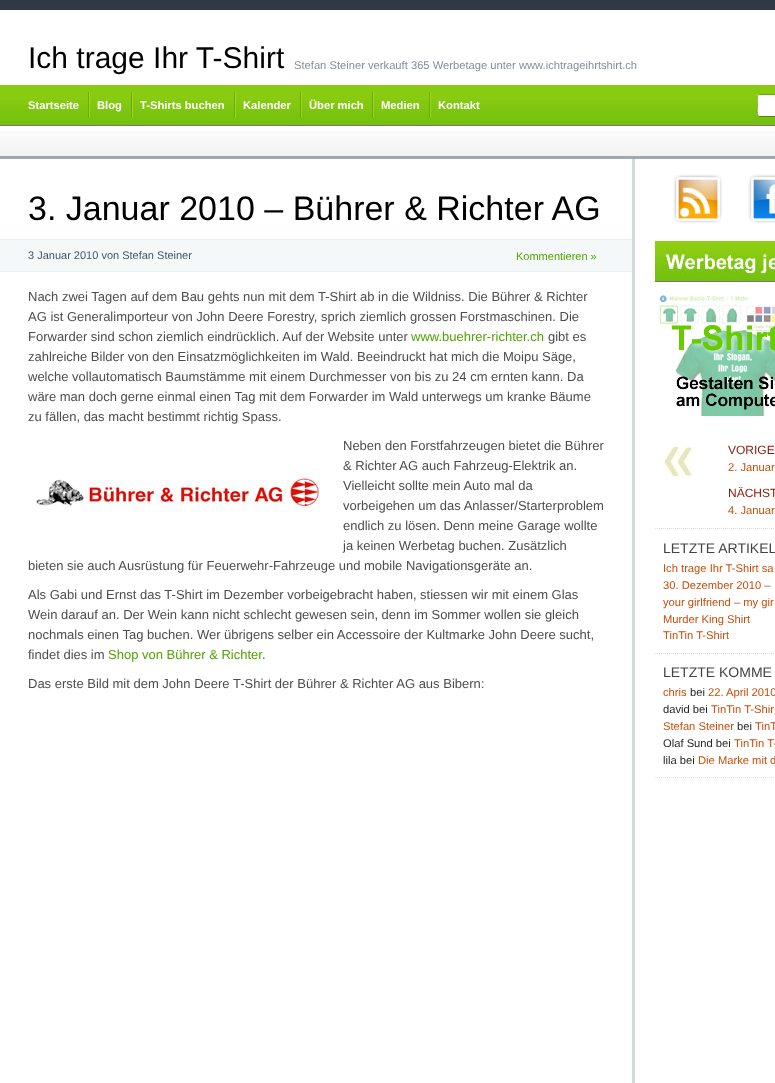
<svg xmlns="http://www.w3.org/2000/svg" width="775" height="1083">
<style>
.a{font:30px Liberation Sans;fill:#000}
.b{font:11.2px Liberation Sans;fill:#868f98}
.c{font:bold 11.2px Liberation Sans;fill:#fff}
.d{font:34px Liberation Sans;fill:#000}
.e{font:11px Liberation Sans;fill:#3e5867}
.f{font:11px Liberation Sans;fill:#51a201}
.g{font:13px Liberation Sans;fill:#4d4d4d}
.h{font:13px Liberation Sans;fill:#51a201}
.i{font:12px Liberation Sans;fill:#86180a}
.j{font:11.2px Liberation Sans;fill:#c54e0b}
.k{font:14px Liberation Sans;fill:#434343}
.l{font:11.2px Liberation Sans;fill:#242626}
</style>
<rect width="100%" height="100%" fill="#fff"/>
<image href="1.png" x="0" y="0" width="775" height="159"/>
<path fill="#fff" d="M0 10h775v121H0z"/>
<path fill="#89cb11" d="M0 85h775v15H0z"/>
<image href="2.png" x="0" y="100" width="775" height="26"/>
<image href="3.png" x="88" y="92" width="2" height="26"/>
<image href="3.png" x="131" y="92" width="2" height="26"/>
<image href="3.png" x="234" y="92" width="2" height="26"/>
<image href="3.png" x="300" y="92" width="2" height="26"/>
<image href="3.png" x="372" y="92" width="2" height="26"/>
<image href="3.png" x="429" y="92" width="2" height="26"/>
<rect fill="#fff" x="757" y="94" width="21" height="23" rx="3"/>
<path fill="none" stroke="#548301" d="M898 95c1.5 2 .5 11 .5 13.5c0 1.5 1.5 8-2.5 8h-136l-2-.5"/>
<path fill="none" stroke="#69ab01" d="M758 116c-1.5-2-.5-11-.5-13.5c0-1.5-1.5-8 2.5-8h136l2 .5"/>
<image href="4.png" x="0" y="131" width="775" height="25"/>
<path fill="#d5dadd" d="M632 159h3v924H632z"/>
<path fill="#f4f8f9" d="M0 240h632v31H0z"/>
<path fill="#e6f0f2" d="M0 239h632v1H0z"/>
<path fill="#e6f0f2" d="M0 271h632v1H0z"/>
<image href="5.png" x="33" y="472" width="287" height="40"/>
<image href="6.png" x="673" y="174" width="49" height="49"/>
<image href="7.png" x="748" y="174" width="27" height="49"/>
<image href="8.png" x="655" y="241" width="120" height="41"/>
<image href="9.png" x="659" y="295" width="116" height="121"/>
<path fill="none" stroke="#ddd" stroke-dasharray="1 1" d="M655 528.5h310"/>
<image href="10.png" x="664" y="447" width="28" height="29"/>
<path fill="none" stroke="#ddd" stroke-dasharray="1 1" d="M655 653.5h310"/>
<path fill="none" stroke="#ddd" stroke-dasharray="1 1" d="M655 777.5h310"/>
<text class="a" x="28" y="68">Ich trage Ihr T-Shirt</text>
<text class="b" x="294" y="69">Stefan Steiner verkauft 365 Werbetage unter www.ichtrageihrtshirt.ch</text>
<text class="c" x="28" y="109">Startseite</text>
<text class="c" x="97" y="109">Blog</text>
<text class="c" x="140" y="109">T-Shirts buchen</text>
<text class="c" x="243" y="109">Kalender</text>
<text class="c" x="309" y="109">Über mich</text>
<text class="c" x="381" y="109">Medien</text>
<text class="c" x="438" y="109">Kontakt</text>
<text class="d" x="28" y="220">3. Januar 2010 – Bührer &amp; Richter AG</text>
<text class="e" x="28" y="259">3 Januar 2010 von Stefan Steiner</text>
<text class="f" x="516" y="260">Kommentieren »</text>
<text class="g" x="28" y="301">Nach zwei Tagen auf dem Bau gehts nun mit dem T-Shirt ab in die Wildniss. Die Bührer &amp; Richter</text>
<text class="g" x="28" y="321">AG ist Generalimporteur von John Deere Forestry, sprich ziemlich grossen Forstmaschinen. Die</text>
<text class="g" x="28" y="341">Forwarder sind schon ziemlich eindrücklich. Auf der Website unter</text>
<text class="h" x="411" y="341">www.buehrer-richter.ch</text>
<text class="g" x="548" y="341">gibt es</text>
<text class="g" x="28" y="361">zahlreiche Bilder von den Einsatzmöglichkeiten im Wald. Beeindruckt hat mich die Moipu Säge,</text>
<text class="g" x="28" y="381">welche vollautomatisch Baumstämme mit einem Durchmesser von bis zu 24 cm ernten kann. Da</text>
<text class="g" x="28" y="401">wäre man doch gerne einmal einen Tag mit dem Forwarder im Wald unterwegs um kranke Bäume</text>
<text class="g" x="28" y="421">zu fällen, das macht bestimmt richtig Spass.</text>
<text class="g" x="343" y="450">Neben den Forstfahrzeugen bietet die Bührer</text>
<text class="g" x="343" y="470">&amp; Richter AG auch Fahrzeug-Elektrik an.</text>
<text class="g" x="343" y="490">Vielleicht sollte mein Auto mal da</text>
<text class="g" x="343" y="510">vorbeigehen um das Anlasser/Starterproblem</text>
<text class="g" x="343" y="530">endlich zu lösen. Denn meine Garage wollte</text>
<text class="g" x="343" y="550">ja keinen Werbetag buchen. Zusätzlich</text>
<text class="g" x="28" y="570">bieten sie auch Ausrüstung für Feuerwehr-Fahrzeuge und mobile Navigationsgeräte an.</text>
<text class="g" x="28" y="599">Als Gabi und Ernst das T-Shirt im Dezember vorbeigebracht haben, stiessen wir mit einem Glas</text>
<text class="g" x="28" y="619">Wein darauf an. Der Wein kann nicht schlecht gewesen sein, denn im Sommer wollen sie gleich</text>
<text class="g" x="28" y="639">nochmals einen Tag buchen. Wer übrigens selber ein Accessoire der Kultmarke John Deere sucht,</text>
<text class="g" x="28" y="659">findet dies im</text>
<text class="h" x="108" y="659">Shop von Bührer &amp; Richter</text>
<text class="g" x="262" y="659">.</text>
<text class="g" x="28" y="688">Das erste Bild mit dem John Deere T-Shirt der Bührer &amp; Richter AG aus Bibern:</text>
<text class="i" x="728" y="454">VORIGE</text>
<text class="j" x="728" y="471">2. Januar</text>
<text class="i" x="728" y="497">NÄCHST</text>
<text class="j" x="728" y="514">4. Januar</text>
<text class="k" x="663" y="553">LETZTE ARTIKEL</text>
<text class="j" x="663" y="572">Ich trage Ihr T-Shirt sa</text>
<text class="j" x="663" y="589">30. Dezember 2010 –</text>
<text class="j" x="663" y="606">your girlfriend – my gir</text>
<text class="j" x="663" y="623">Murder King Shirt</text>
<text class="j" x="663" y="639">TinTin T-Shirt</text>
<text class="k" x="663" y="677">LETZTE KOMME</text>
<text class="j" x="663" y="696">chris</text>
<text class="l" x="690" y="696">bei</text>
<text class="j" x="708" y="696">22. April 2010</text>
<text class="l" x="663" y="713">david bei</text>
<text class="j" x="711" y="713">TinTin T-Shir</text>
<text class="j" x="663" y="730">Stefan Steiner</text>
<text class="l" x="737" y="730">bei</text>
<text class="j" x="755" y="730">TinT</text>
<text class="l" x="663" y="747">Olaf Sund bei</text>
<text class="j" x="734" y="747">TinTin T-</text>
<text class="l" x="663" y="764">lila bei</text>
<text class="j" x="698" y="764">Die Marke mit d</text>
</svg>
